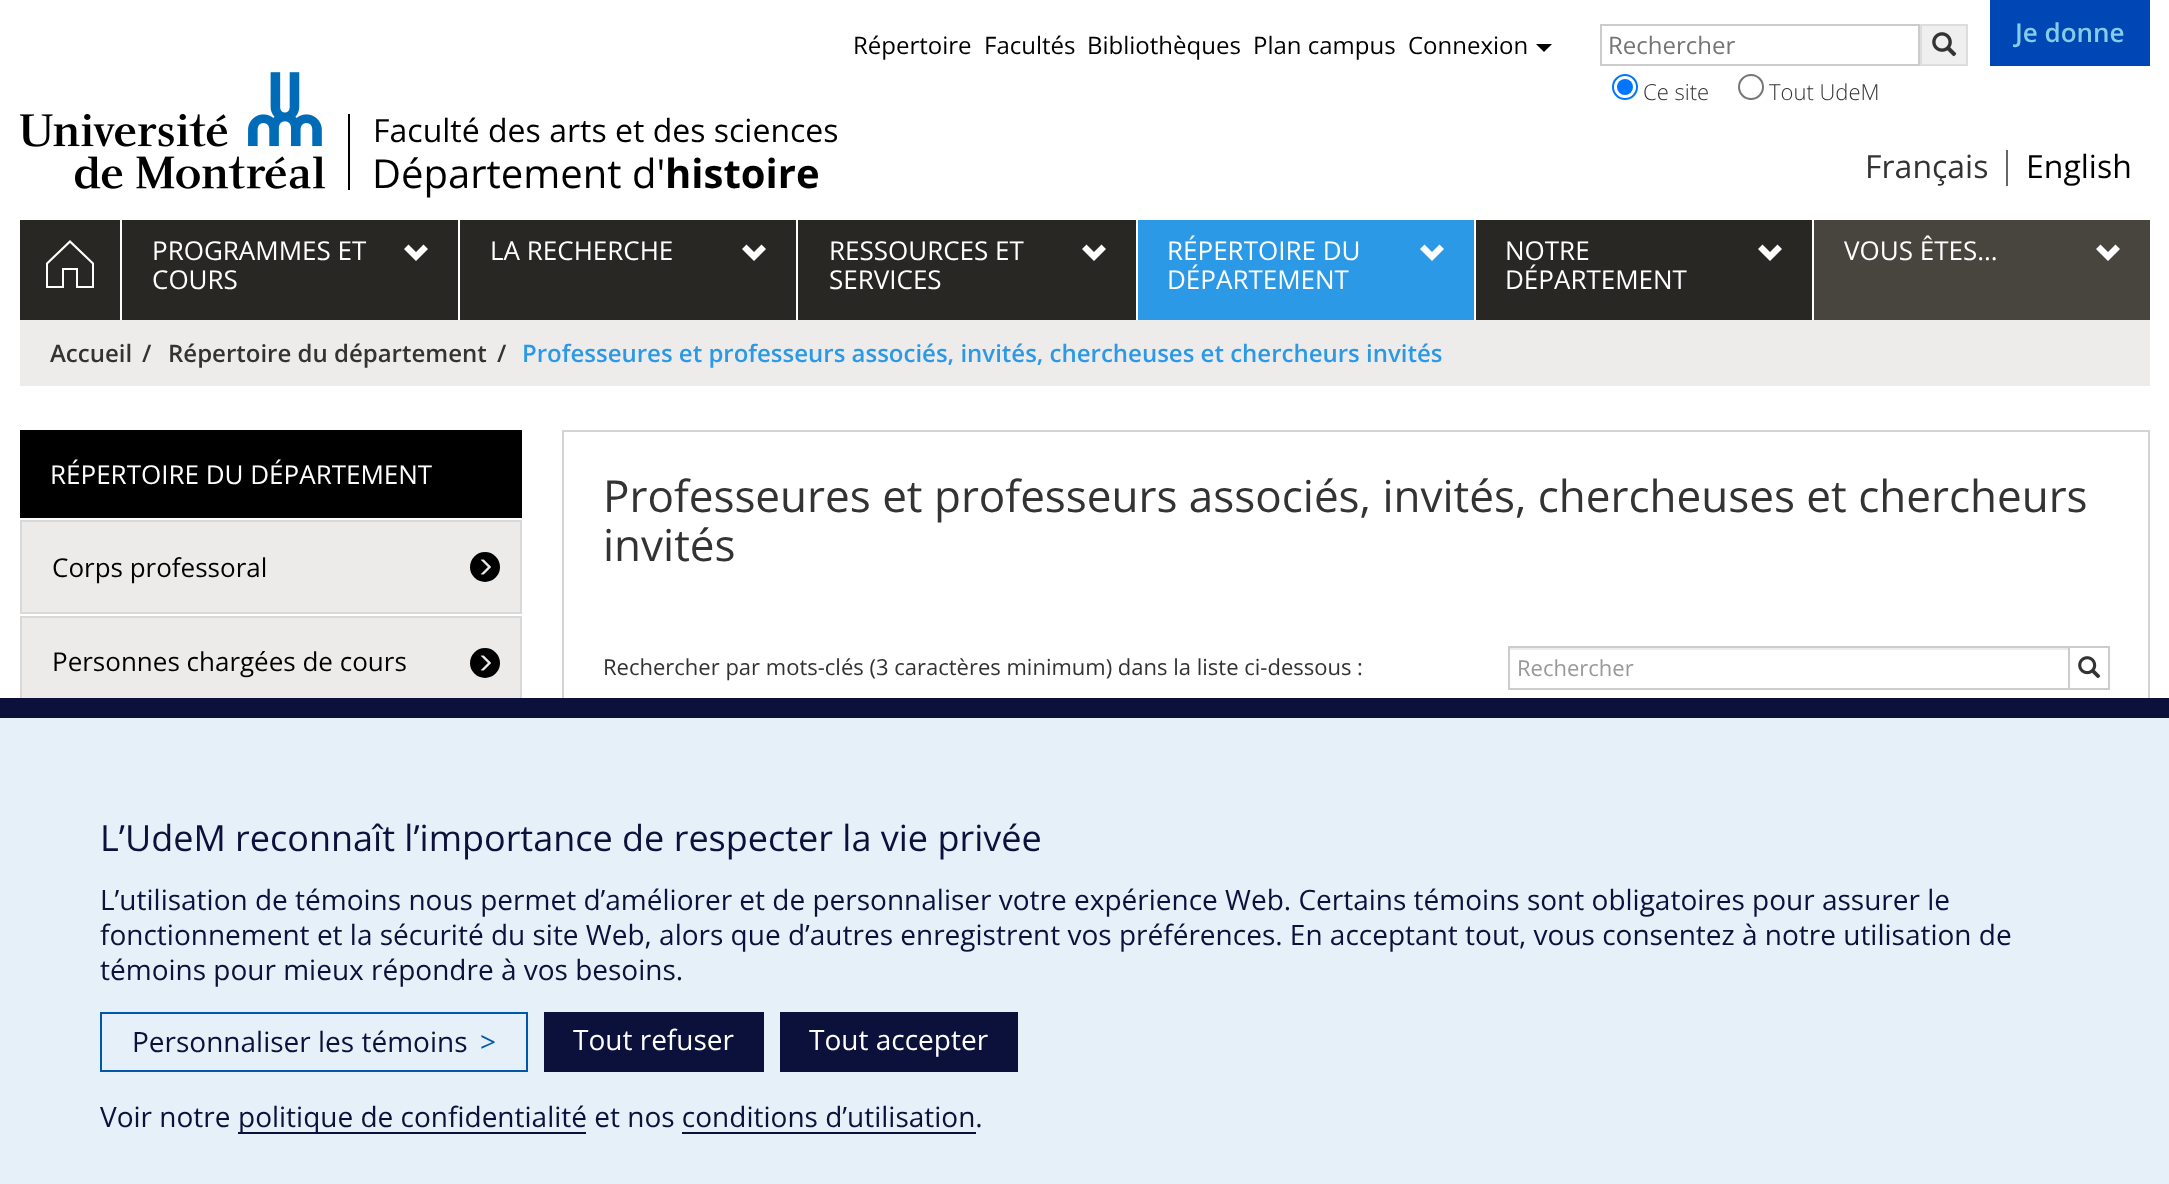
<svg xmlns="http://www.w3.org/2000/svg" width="2169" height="1184">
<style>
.a{font:24px Open Sans;fill:#000}
.b{font:24px Open Sans;fill:#757575}
.c{font:300 22px Open Sans;fill:#333}
.d{font:600 26px Open Sans;fill:#85cde6}
.e{font:32px Open Sans;fill:#000}
.f{font:40px Open Sans;fill:#000}
.g{font:bold 40px Open Sans;fill:#000}
.h{font:32px Open Sans;fill:#333}
.i{font:26px Open Sans;fill:#fff}
.j{font:600 24px Open Sans;fill:#333}
.k{font:600 24px Open Sans;fill:#2b99e6}
.l{font:26px Open Sans;fill:#000}
.m{font:44px Open Sans;fill:#333}
.n{font:22px Open Sans;fill:#333}
.o{font:22px Open Sans;fill:#999}
.p{font:36px Open Sans;fill:#0b113a}
.q{font:28px Open Sans;fill:#0b113a}
.r{font:28px Open Sans;fill:#0057ac}
.s{font:28px Open Sans;fill:#fff}
</style>
<rect width="100%" height="100%" fill="#fff"/>
<path fill="#000" d="M1536 44h16l-8 8z"/>
<path fill="none" stroke="#ccc" stroke-width="2" d="M1601 25h318v40H1601z"/>
<path fill="#efefef" stroke="#ddd" stroke-width="2" d="M1921 25h46v40H1921z"/>
<image href="1.png" x="1932" y="32" width="25" height="25"/>
<circle fill="none" stroke="#0075ff" stroke-width="2" cx="1625" cy="87" r="12"/>
<circle fill="#0075ff" cx="1625" cy="87" r="8"/>
<circle fill="none" stroke="#767676" stroke-width="2" cx="1751" cy="87" r="12"/>
<path fill="#0047b6" d="M1990 0h160v66H1990z"/>
<image href="2.png" x="20" y="72" width="306" height="117"/>
<path fill="#000" d="M348 114h2v76H348z"/>
<path fill="#666" d="M2006 150h2v36H2006z"/>
<path fill="#292723" d="M20 220h100v100H20z"/>
<path fill="#fff" d="M70 240l-24 23v25h18v-18h12v18h18v-25zm0 3l22 21v22h-14v-18h-16v18h-14v-22z"/>
<path fill="#292723" d="M122 220h336v100H122z"/>
<path fill="#fff" d="M428 249l-12 12l-12-12l4.5-4.5l7.5 7.5l7.5-7.5z"/>
<path fill="#292723" d="M460 220h336v100H460z"/>
<path fill="#fff" d="M766 249l-12 12l-12-12l4.5-4.5l7.5 7.5l7.5-7.5z"/>
<path fill="#292723" d="M798 220h338v100H798z"/>
<path fill="#fff" d="M1106 249l-12 12l-12-12l4.5-4.5l7.5 7.5l7.5-7.5z"/>
<path fill="#2b99e6" d="M1138 220h336v100H1138z"/>
<path fill="#fff" d="M1444 249l-12 12l-12-12l4.5-4.5l7.5 7.5l7.5-7.5z"/>
<path fill="#292723" d="M1476 220h336v100H1476z"/>
<path fill="#fff" d="M1782 249l-12 12l-12-12l4.5-4.5l7.5 7.5l7.5-7.5z"/>
<path fill="#48453e" d="M1814 220h336v100H1814z"/>
<path fill="#fff" d="M2120 249l-12 12l-12-12l4.5-4.5l7.5 7.5l7.5-7.5z"/>
<path fill="#eeebeb" d="M20 320h2130v66H20z"/>
<path fill="#000" d="M20 430h502v88H20z"/>
<path fill="none" stroke="#d8d8d8" stroke-width="2" d="M21 521h500v92H21z"/>
<path fill="#ecebe9" d="M22 522h498v90H22z"/>
<circle fill="#000" cx="485" cy="567" r="15"/>
<image href="3.png" x="480" y="559" width="11" height="16"/>
<path fill="none" stroke="#d8d8d8" stroke-width="2" d="M21 617h500v90H21z"/>
<path fill="#ecebe9" d="M22 618h498v80H22z"/>
<circle fill="#000" cx="485" cy="663" r="15"/>
<image href="3.png" x="480" y="655" width="11" height="16"/>
<path fill="#d1d3d4" d="M562 430h1588v2H562z"/>
<path fill="#d1d3d4" d="M2148 430h2v268H2148z"/>
<path fill="#d1d3d4" d="M562 430h2v268H562z"/>
<path fill="#ececec" d="M1510 648h558v2H1510z"/>
<path fill="none" stroke="#ccc" stroke-width="2" d="M1509 647h560v42H1509z"/>
<path fill="none" stroke="#ccc" stroke-width="2" d="M2069 647h40v42H2069z"/>
<image href="4.png" x="2078" y="656" width="23" height="23"/>
<path fill="#e5f0f8" d="M0 718h2169v466H0z"/>
<path fill="#0b113a" d="M0 698h2169v20H0z"/>
<path fill="none" stroke="#0057ac" stroke-width="2" d="M101 1013h426v58H101z"/>
<path fill="#0b113a" d="M544 1012h220v60H544z"/>
<path fill="#0b113a" d="M780 1012h238v60H780z"/>
<path fill="#0b113a" d="M238 1132h348v2H238z"/>
<path fill="#0b113a" d="M682 1132h294v2H682z"/>
<text class="a" x="853" y="54">Répertoire</text>
<text class="a" x="984" y="54">Facultés</text>
<text class="a" x="1087" y="54">Bibliothèques</text>
<text class="a" x="1253" y="54">Plan campus</text>
<text class="a" x="1408" y="54">Connexion</text>
<text class="b" x="1608" y="54">Rechercher</text>
<text class="c" x="1643" y="100">Ce site</text>
<text class="c" x="1769" y="100">Tout UdeM</text>
<text class="d" x="2015" y="42">Je donne</text>
<text class="e" x="373" y="142">Faculté des arts et des sciences</text>
<text class="f" x="372" y="188">Département d'</text>
<text class="g" x="665" y="188">histoire</text>
<text class="h" x="1865" y="178">Français</text>
<text class="e" x="2026" y="178">English</text>
<text class="i" x="152" y="260">PROGRAMMES ET</text>
<text class="i" x="152" y="289">COURS</text>
<text class="i" x="490" y="260">LA RECHERCHE</text>
<text class="i" x="829" y="260">RESSOURCES ET</text>
<text class="i" x="829" y="289">SERVICES</text>
<text class="i" x="1167" y="260">RÉPERTOIRE DU</text>
<text class="i" x="1167" y="289">DÉPARTEMENT</text>
<text class="i" x="1505" y="260">NOTRE</text>
<text class="i" x="1505" y="289">DÉPARTEMENT</text>
<text class="i" x="1844" y="260">VOUS ÊTES...</text>
<text class="j" x="50" y="362">Accueil</text>
<text class="j" x="142" y="362">/</text>
<text class="j" x="168" y="362">Répertoire du département</text>
<text class="j" x="497" y="362">/</text>
<text class="k" x="522" y="362">Professeures et professeurs associés, invités, chercheuses et chercheurs invités</text>
<text class="i" x="50" y="484">RÉPERTOIRE DU DÉPARTEMENT</text>
<text class="l" x="52" y="577">Corps professoral</text>
<text class="l" x="52" y="671">Personnes chargées de cours</text>
<text class="m" x="603" y="512">Professeures et professeurs associés, invités, chercheuses et chercheurs</text>
<text class="m" x="603" y="561">invités</text>
<text class="n" x="603" y="675">Rechercher par mots-clés (3 caractères minimum) dans la liste ci-dessous :</text>
<text class="o" x="1517" y="676">Rechercher</text>
<text class="p" x="100" y="851">L’UdeM reconnaît l’importance de respecter la vie privée</text>
<text class="q" x="100" y="910">L’utilisation de témoins nous permet d’améliorer et de personnaliser votre expérience Web. Certains témoins sont obligatoires pour assurer le</text>
<text class="q" x="100" y="945">fonctionnement et la sécurité du site Web, alors que d’autres enregistrent vos préférences. En acceptant tout, vous consentez à notre utilisation de</text>
<text class="q" x="100" y="980">témoins pour mieux répondre à vos besoins.</text>
<text class="q" x="132" y="1052">Personnaliser les témoins</text>
<text class="r" x="480" y="1052">&gt;</text>
<text class="s" x="573" y="1050">Tout refuser</text>
<text class="s" x="809" y="1050">Tout accepter</text>
<text class="q" x="100" y="1127">Voir notre</text>
<text class="q" x="238" y="1127">politique de confidentialité et nos conditions d’utilisation.</text>
</svg>
